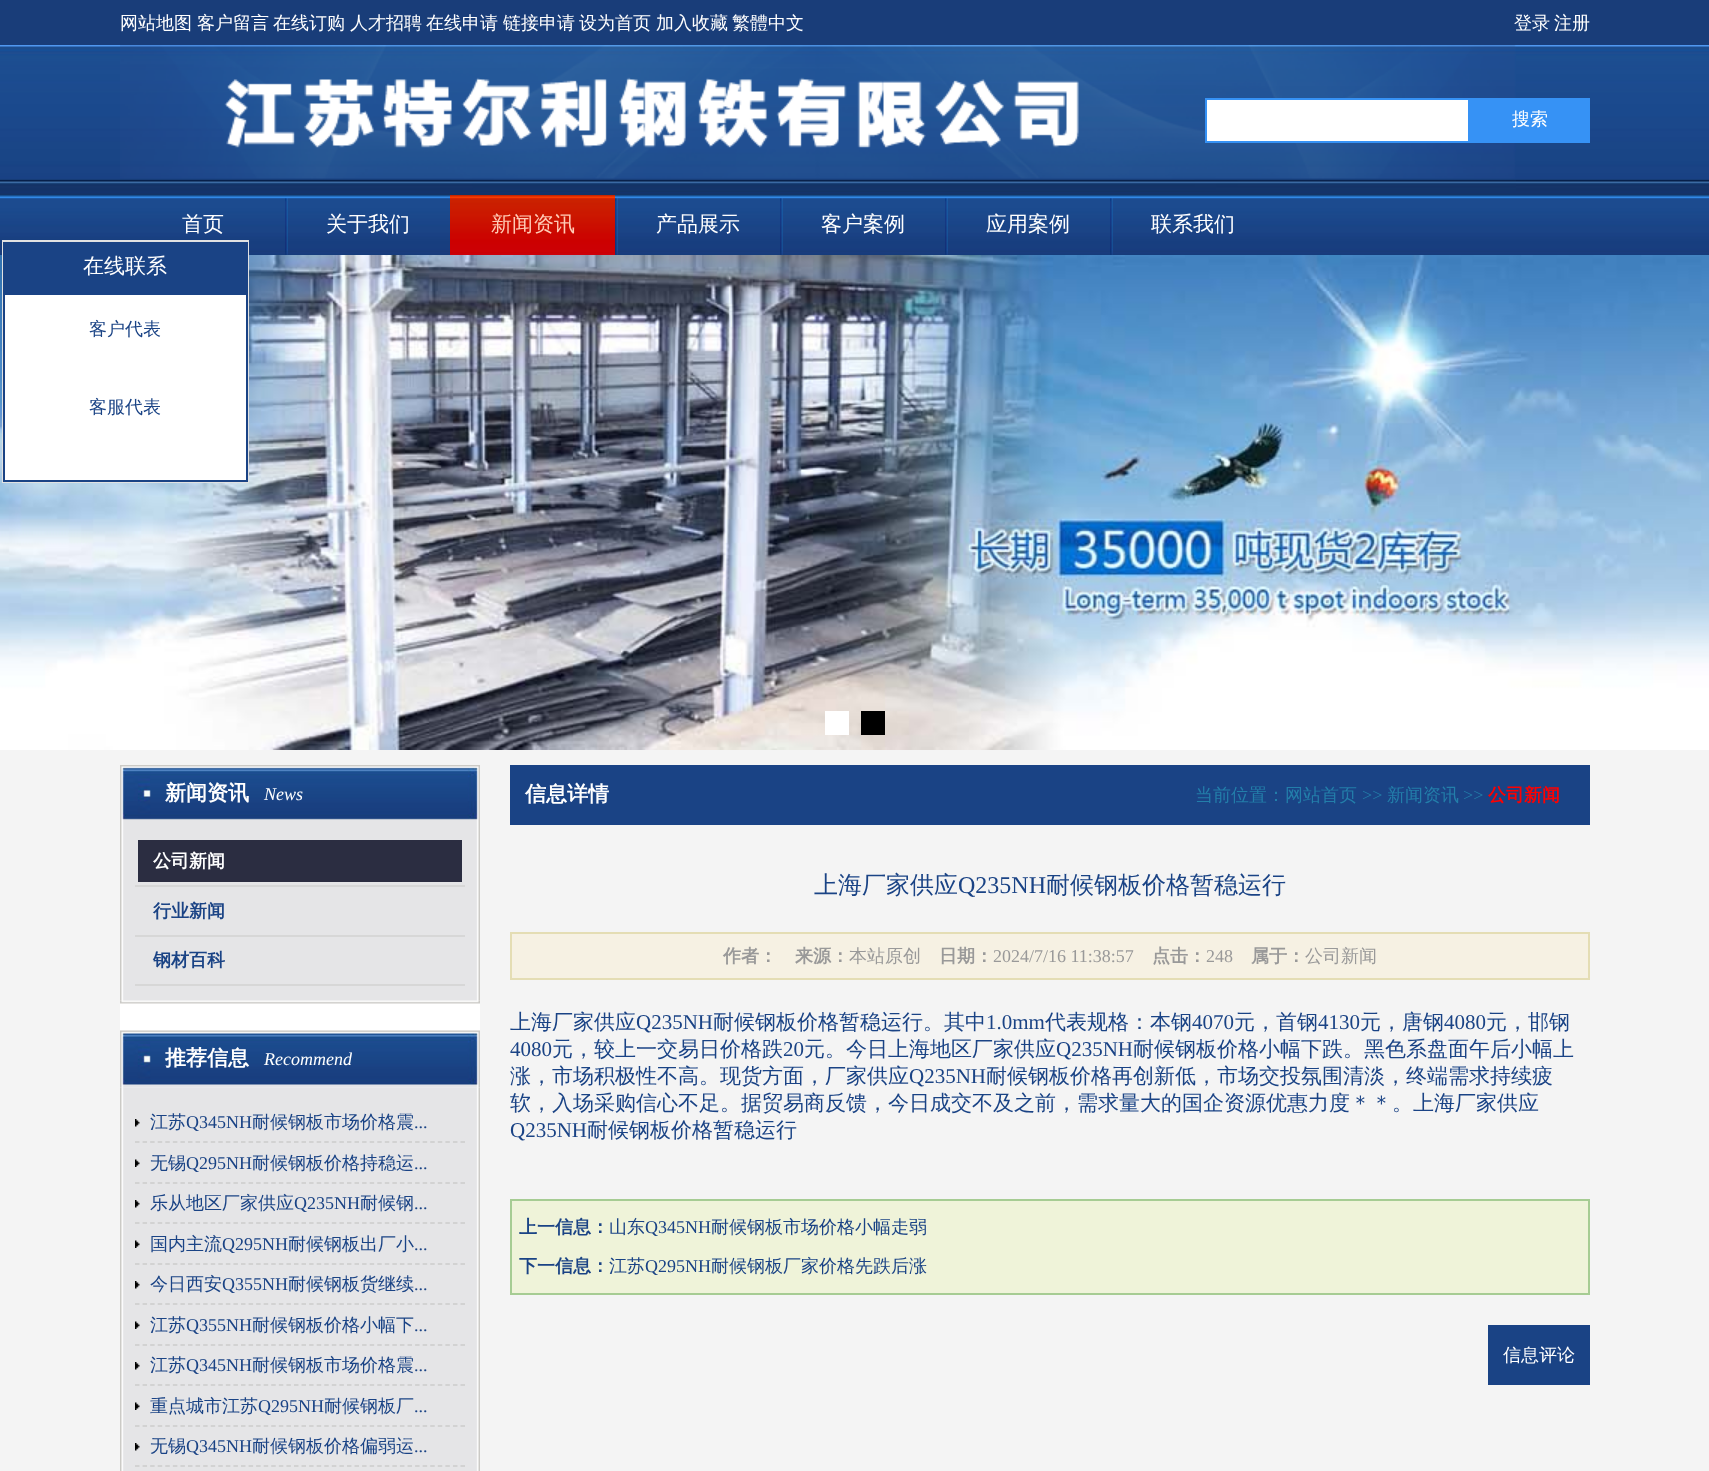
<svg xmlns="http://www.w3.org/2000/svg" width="1709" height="1471">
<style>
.a{font:500 18px WenQuanYi Zen Hei;fill:#fff}
.b{font:500 21px WenQuanYi Zen Hei;fill:#fff}
.c{font:500 21px WenQuanYi Zen Hei;fill:#ffcbb5}
.d{font:500 18px WenQuanYi Zen Hei;fill:#1a4385}
.e{font:bold 21px WenQuanYi Zen Hei;fill:#fff}
.f{font:italic 18px Liberation Serif;fill:#fff}
.g{font:bold 18px WenQuanYi Zen Hei;fill:#fff}
.h{font:bold 18px WenQuanYi Zen Hei;fill:#1a4385}
.i{font:18px Liberation Serif;fill:#1a4385}
.j{font:500 18px WenQuanYi Zen Hei;fill:#237eaa}
.k{font:18px Liberation Serif;fill:#237eaa}
.l{font:bold 18px WenQuanYi Zen Hei;fill:#f00}
.m{font:500 24px WenQuanYi Zen Hei;fill:#1a4385}
.n{font:24px Liberation Serif;fill:#1a4385}
.o{font:bold 18px WenQuanYi Zen Hei;fill:#999}
.p{font:500 18px WenQuanYi Zen Hei;fill:#999}
.q{font:18px Liberation Serif;fill:#999}
.r{font:500 21px WenQuanYi Zen Hei;fill:#1a4385}
.s{font:21px Liberation Serif;fill:#1a4385}
</style>
<rect width="100%" height="100%" fill="#f4f4f4"/>
<path fill="#193d79" d="M0 0h1709v45H0z"/>
<image href="1.png" x="0" y="45" width="1709" height="150"/>
<image href="2.png" x="120" y="45" width="1396" height="147"/>
<path fill="#fff" stroke="#3692f5" stroke-width="2" d="M1206 99h263v43H1206z"/>
<path fill="#3692f5" d="M1470 98h120v45H1470z"/>
<image href="3.png" x="0" y="195" width="1709" height="60"/>
<image href="4.png" x="285" y="198" width="3" height="57"/>
<image href="5.png" x="450" y="195" width="165" height="60"/>
<image href="6.png" x="615" y="198" width="3" height="57"/>
<image href="6.png" x="780" y="198" width="3" height="57"/>
<image href="6.png" x="945" y="198" width="3" height="57"/>
<image href="4.png" x="1110" y="198" width="3" height="57"/>
<image href="7.png" x="0" y="255" width="1709" height="495"/>
<path fill="#fff" d="M825 711h24v24H825z"/>
<path fill="#000" d="M861 711h24v24H861z"/>
<path fill="none" stroke="#e2e2e2" stroke-width="2" d="M3 241h245v241H3z"/>
<path fill="#1a4385" d="M3 242h245v51H3z"/>
<path fill="#fff" stroke="#1a4385" stroke-width="2" d="M4 294h243v187H4z"/>
<image href="8.png" x="120" y="765" width="360" height="57"/>
<image href="10.png" x="120" y="1000" width="360" height="31"/>
<image href="9.png" x="120" y="822" width="360" height="179"/>
<path fill="#d7d7d7" d="M135 885h330v2H135z"/>
<path fill="#2b2d41" d="M138 840h324v42H138z"/>
<path fill="#d7d7d7" d="M135 935h330v2H135z"/>
<path fill="#d7d7d7" d="M135 984h330v2H135z"/>
<image href="11.png" x="120" y="1030" width="360" height="58"/>
<image href="12.png" x="120" y="1087" width="360" height="384"/>
<image href="13.png" x="135" y="1119" width="5" height="8"/>
<path fill="none" stroke="#ccc" stroke-width="1.5" stroke-dasharray="4.5 3.07" d="M135 1142h330"/>
<image href="14.png" x="135" y="1159" width="5" height="8"/>
<path fill="none" stroke="#ccc" stroke-width="1.5" stroke-dasharray="4.5 3.07" d="M135 1183h330"/>
<image href="13.png" x="135" y="1200" width="5" height="8"/>
<path fill="none" stroke="#ccc" stroke-width="1.5" stroke-dasharray="4.5 3.07" d="M135 1223h330"/>
<image href="14.png" x="135" y="1240" width="5" height="8"/>
<path fill="none" stroke="#ccc" stroke-width="1.5" stroke-dasharray="4.5 3.07" d="M135 1264h330"/>
<image href="13.png" x="135" y="1281" width="5" height="8"/>
<path fill="none" stroke="#ccc" stroke-width="1.5" stroke-dasharray="4.5 3.07" d="M135 1304h330"/>
<image href="14.png" x="135" y="1321" width="5" height="8"/>
<path fill="none" stroke="#ccc" stroke-width="1.5" stroke-dasharray="4.5 3.07" d="M135 1345h330"/>
<image href="13.png" x="135" y="1362" width="5" height="8"/>
<path fill="none" stroke="#ccc" stroke-width="1.5" stroke-dasharray="4.5 3.07" d="M135 1385h330"/>
<image href="14.png" x="135" y="1402" width="5" height="8"/>
<path fill="none" stroke="#ccc" stroke-width="1.5" stroke-dasharray="4.5 3.07" d="M135 1426h330"/>
<image href="13.png" x="135" y="1443" width="5" height="8"/>
<path fill="none" stroke="#ccc" stroke-width="1.5" stroke-dasharray="4.5 3.07" d="M135 1466h330"/>
<path fill="#1a4385" d="M510 765h1080v60H510z"/>
<path fill="#f6f1e3" stroke="#e4ddb4" stroke-width="2" d="M511 933h1078v46H511z"/>
<path fill="#eff3d9" stroke="#a6cc93" stroke-width="2" d="M511 1200h1078v94H511z"/>
<path fill="#1a4385" d="M1488 1325h102v60H1488z"/>
<text class="a" x="120" y="29">网站地图</text>
<text class="a" x="197" y="29">客户留言</text>
<text class="a" x="273" y="29">在线订购</text>
<text class="a" x="350" y="29">人才招聘</text>
<text class="a" x="426" y="29">在线申请</text>
<text class="a" x="503" y="29">链接申请</text>
<text class="a" x="579" y="29">设为首页</text>
<text class="a" x="656" y="29">加入收藏</text>
<text class="a" x="732" y="29">繁體中文</text>
<text class="a" x="1514" y="29">登录</text>
<text class="a" x="1554" y="29">注册</text>
<text class="a" x="1512" y="125">搜索</text>
<text class="b" x="182" y="231">首页</text>
<text class="b" x="326" y="231">关于我们</text>
<text class="c" x="491" y="231">新闻资讯</text>
<text class="b" x="656" y="231">产品展示</text>
<text class="b" x="821" y="231">客户案例</text>
<text class="b" x="986" y="231">应用案例</text>
<text class="b" x="1151" y="231">联系我们</text>
<text class="b" x="83" y="273">在线联系</text>
<text class="d" x="89" y="335">客户代表</text>
<text class="d" x="89" y="413">客服代表</text>
<text class="e" x="165" y="800">新闻资讯</text>
<text class="f" x="264" y="800">News</text>
<text class="g" x="153" y="867">公司新闻</text>
<text class="h" x="153" y="917">行业新闻</text>
<text class="h" x="153" y="966">钢材百科</text>
<text class="e" x="165" y="1065">推荐信息</text>
<text class="f" x="264" y="1065">Recommend</text>
<text class="d" x="150" y="1128">江苏</text>
<text class="i" x="186" y="1128">Q345NH</text>
<text class="d" x="252" y="1128">耐候钢板市场价格震</text>
<text class="i" x="414" y="1128">...</text>
<text class="d" x="150" y="1169">无锡</text>
<text class="i" x="186" y="1169">Q295NH</text>
<text class="d" x="252" y="1169">耐候钢板价格持稳运</text>
<text class="i" x="414" y="1169">...</text>
<text class="d" x="150" y="1209">乐从地区厂家供应</text>
<text class="i" x="294" y="1209">Q235NH</text>
<text class="d" x="360" y="1209">耐候钢</text>
<text class="i" x="414" y="1209">...</text>
<text class="d" x="150" y="1250">国内主流</text>
<text class="i" x="222" y="1250">Q295NH</text>
<text class="d" x="288" y="1250">耐候钢板出厂小</text>
<text class="i" x="414" y="1250">...</text>
<text class="d" x="150" y="1290">今日西安</text>
<text class="i" x="222" y="1290">Q355NH</text>
<text class="d" x="288" y="1290">耐候钢板货继续</text>
<text class="i" x="414" y="1290">...</text>
<text class="d" x="150" y="1331">江苏</text>
<text class="i" x="186" y="1331">Q355NH</text>
<text class="d" x="252" y="1331">耐候钢板价格小幅下</text>
<text class="i" x="414" y="1331">...</text>
<text class="d" x="150" y="1371">江苏</text>
<text class="i" x="186" y="1371">Q345NH</text>
<text class="d" x="252" y="1371">耐候钢板市场价格震</text>
<text class="i" x="414" y="1371">...</text>
<text class="d" x="150" y="1412">重点城市江苏</text>
<text class="i" x="258" y="1412">Q295NH</text>
<text class="d" x="324" y="1412">耐候钢板厂</text>
<text class="i" x="414" y="1412">...</text>
<text class="d" x="150" y="1452">无锡</text>
<text class="i" x="186" y="1452">Q345NH</text>
<text class="d" x="252" y="1452">耐候钢板价格偏弱运</text>
<text class="i" x="414" y="1452">...</text>
<text class="e" x="525" y="801">信息详情</text>
<text class="j" x="1195" y="801">当前位置：网站首页</text>
<text class="k" x="1362" y="801">&gt;&gt;</text>
<text class="j" x="1387" y="801">新闻资讯</text>
<text class="k" x="1463" y="801">&gt;&gt;</text>
<text class="l" x="1488" y="801">公司新闻</text>
<text class="m" x="814" y="893">上海厂家供应</text>
<text class="n" x="958" y="893">Q235NH</text>
<text class="m" x="1046" y="893">耐候钢板价格暂稳运行</text>
<text class="o" x="723" y="962">作者：</text>
<text class="o" x="795" y="962">来源：</text>
<text class="p" x="849" y="962">本站原创</text>
<text class="o" x="939" y="962">日期：</text>
<text class="q" x="993" y="962">2024/7/16 11:38:57</text>
<text class="o" x="1152" y="962">点击：</text>
<text class="q" x="1206" y="962">248</text>
<text class="o" x="1251" y="962">属于：</text>
<text class="p" x="1305" y="962">公司新闻</text>
<text class="r" x="510" y="1029">上海厂家供应</text>
<text class="s" x="636" y="1029">Q235NH</text>
<text class="r" x="713" y="1029">耐候钢板价格暂稳运行。其中</text>
<text class="s" x="986" y="1029">1.0mm</text>
<text class="r" x="1045" y="1029">代表规格：本钢</text>
<text class="s" x="1192" y="1029">4070</text>
<text class="r" x="1234" y="1029">元，首钢</text>
<text class="s" x="1318" y="1029">4130</text>
<text class="r" x="1360" y="1029">元，唐钢</text>
<text class="s" x="1444" y="1029">4080</text>
<text class="r" x="1486" y="1029">元，邯钢</text>
<text class="s" x="510" y="1056">4080</text>
<text class="r" x="552" y="1056">元，较上一交易日价格跌</text>
<text class="s" x="783" y="1056">20</text>
<text class="r" x="804" y="1056">元。今日上海地区厂家供应</text>
<text class="s" x="1056" y="1056">Q235NH</text>
<text class="r" x="1133" y="1056">耐候钢板价格小幅下跌。黑色系盘面午后小幅上</text>
<text class="r" x="510" y="1083">涨，市场积极性不高。现货方面，厂家供应</text>
<text class="s" x="909" y="1083">Q235NH</text>
<text class="r" x="986" y="1083">耐候钢板价格再创新低，市场交投氛围清淡，终端需求持续疲</text>
<text class="r" x="510" y="1110">软，入场采购信心不足。据贸易商反馈，今日成交不及之前，需求量大的国企资源优惠力度＊＊。上海厂家供应</text>
<text class="s" x="510" y="1137">Q235NH</text>
<text class="r" x="587" y="1137">耐候钢板价格暂稳运行</text>
<text class="h" x="519" y="1233">上一信息：</text>
<text class="d" x="609" y="1233">山东</text>
<text class="i" x="645" y="1233">Q345NH</text>
<text class="d" x="711" y="1233">耐候钢板市场价格小幅走弱</text>
<text class="h" x="519" y="1272">下一信息：</text>
<text class="d" x="609" y="1272">江苏</text>
<text class="i" x="645" y="1272">Q295NH</text>
<text class="d" x="711" y="1272">耐候钢板厂家价格先跌后涨</text>
<text class="a" x="1503" y="1361">信息评论</text>
</svg>
